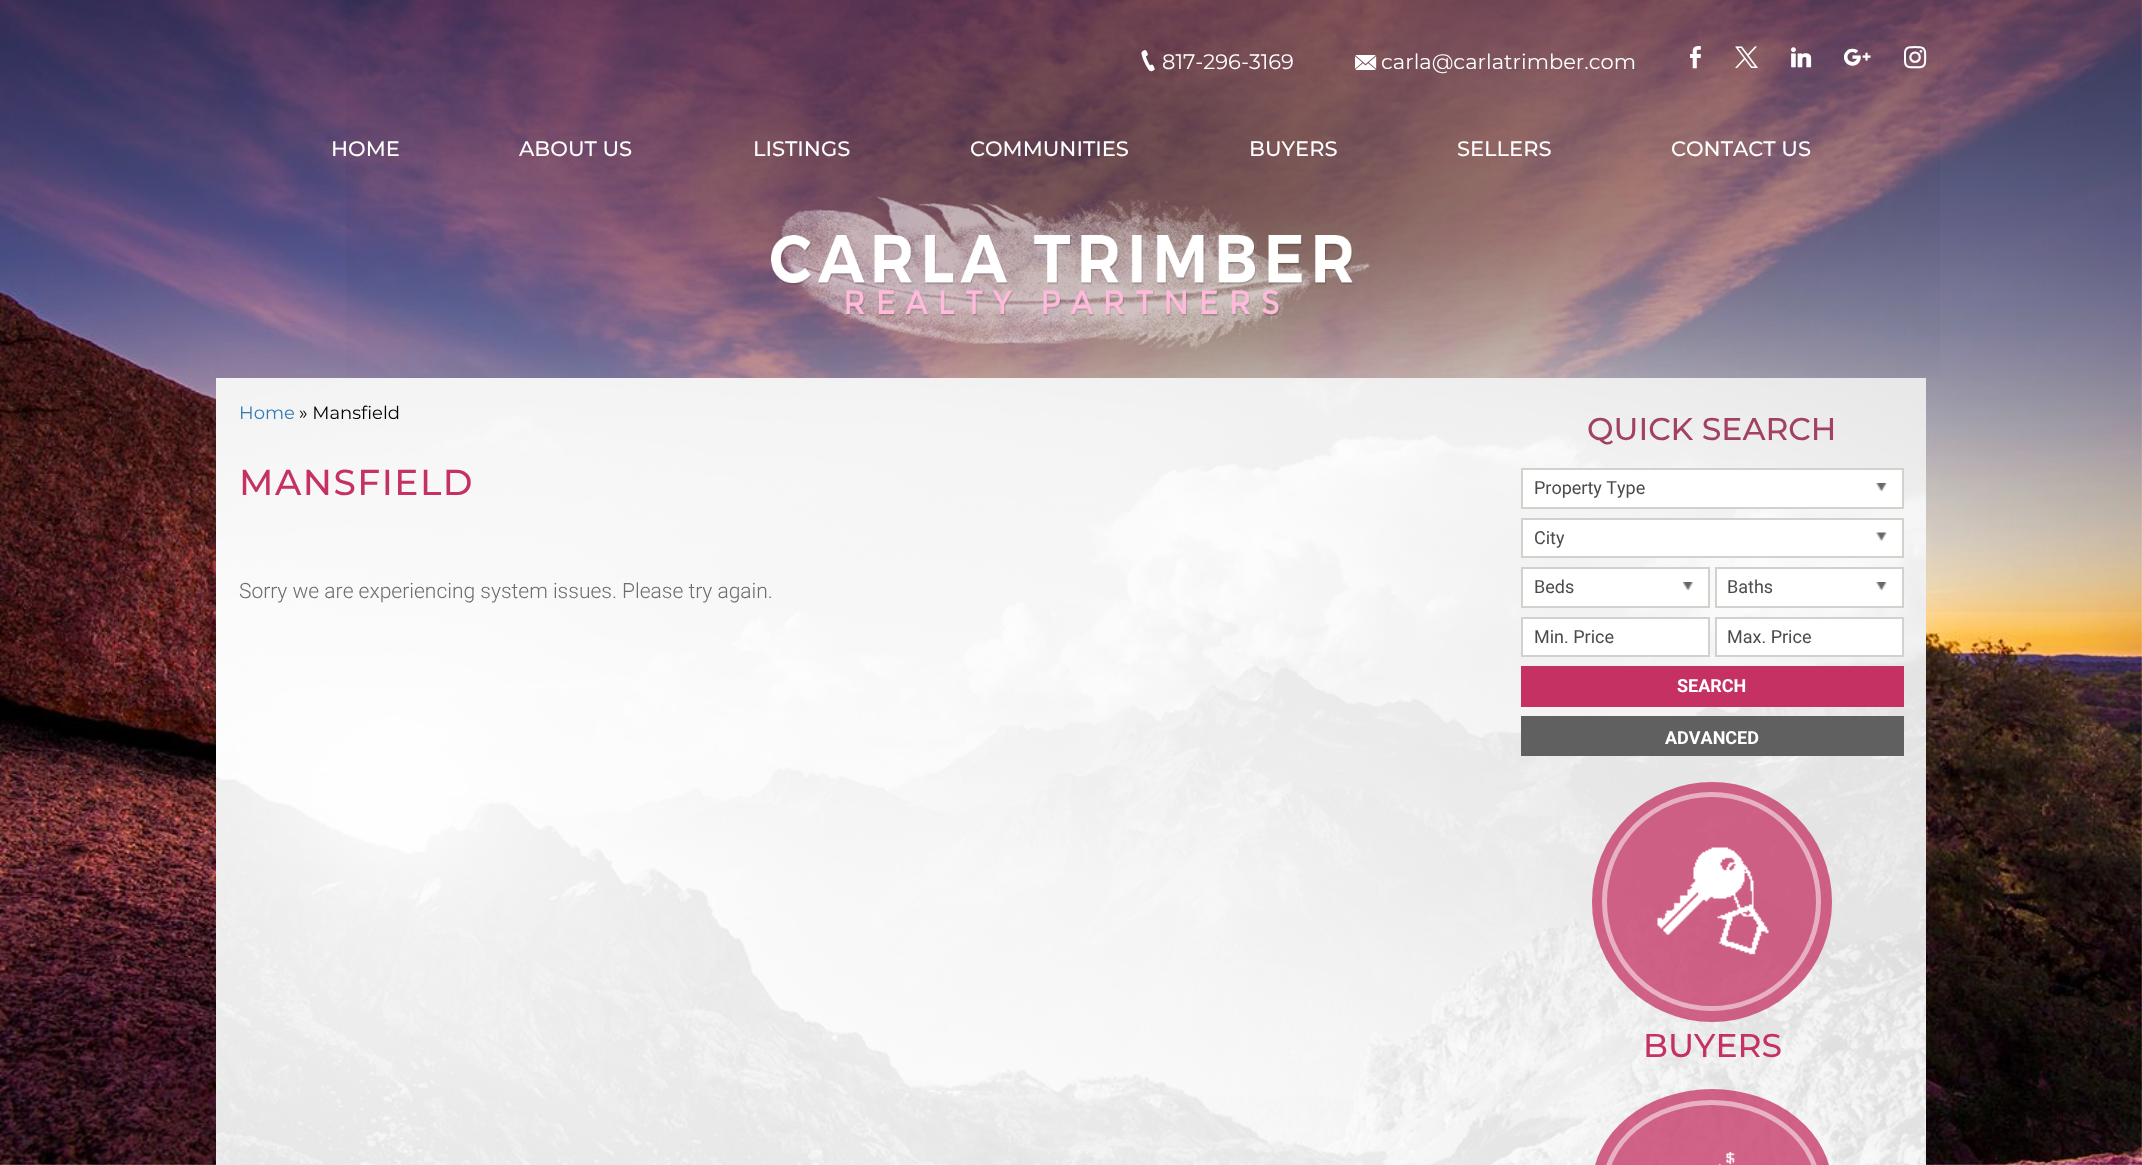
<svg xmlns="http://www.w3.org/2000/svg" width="2142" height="1165">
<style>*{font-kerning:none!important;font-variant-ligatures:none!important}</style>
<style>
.a{font:18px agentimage;fill:#fff}
.b{font:21px Montserrat;fill:#fff}
.c{font:15px agentimage;fill:#fff}
.d{font:27px agentimage;fill:#fff}
.e{font:500 21px Montserrat;fill:#fff}
.f{font:18px Montserrat;fill:#337ab7}
.g{font:18px Montserrat;fill:#000}
.h{font:500 36px Montserrat;letter-spacing:1.5px;fill:#c53163}
.i{font:300 21px Roboto;fill:#6d6d6d}
.j{font:500 31.5px Montserrat;fill:#a24162}
.k{font:18px Roboto;fill:#4b4b4b}
.l{font:bold 18px Roboto;fill:#fff}
.m{font:500 33px Montserrat;fill:#c53163}
</style>
<defs>
<linearGradient id="g1" gradientUnits="userSpaceOnUse" x1="1071" y1="0" x2="1071" y2="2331"><stop offset="0" stop-color="#000" stop-opacity="0.35"/><stop offset="0.28" stop-color="#000" stop-opacity="0"/></linearGradient>
</defs>
<rect width="100%" height="100%" fill="#fff"/>
<image href="1.png" x="0" y="0" width="2142" height="1165"/>
<path fill="url(#g1)" d="M0 0h2142v612H0z"/>
<image href="2.png" x="346" y="0" width="1594" height="378"/>
<image href="3.png" x="771" y="196" width="600" height="155"/>
<path fill="#fff" d="M216 378h1710v787H216z"/>
<image href="4.png" x="216" y="378" width="1710" height="787"/>
<path fill="#fff" d="M1523 470h379v37H1523z"/>
<image href="5.png" x="1876" y="483" width="11" height="9"/>
<path fill="none" stroke="#d2d1cb" stroke-width="2" d="M1522 469h381v39H1522z"/>
<path fill="#fff" d="M1523 520h379v36H1523z"/>
<image href="6.png" x="1876" y="532" width="11" height="10"/>
<path fill="none" stroke="#d2d1cb" stroke-width="2" d="M1522 519h381v38H1522z"/>
<path fill="#fff" d="M1523 569h185v37H1523z"/>
<image href="7.png" x="1683" y="582" width="11" height="9"/>
<path fill="none" stroke="#d2d1cb" stroke-width="2" d="M1522 568h187v39H1522z"/>
<path fill="#fff" d="M1717 569h185v37H1717z"/>
<image href="5.png" x="1876" y="582" width="11" height="9"/>
<path fill="none" stroke="#d2d1cb" stroke-width="2" d="M1716 568h187v39H1716z"/>
<path fill="#fff" stroke="#d2d1cb" stroke-width="2" d="M1522 618h187v38H1522z"/>
<path fill="#fff" stroke="#d2d1cb" stroke-width="2" d="M1716 618h187v38H1716z"/>
<path fill="#c53163" d="M1521 666h383v41H1521z"/>
<path fill="#606060" d="M1521 716h383v40H1521z"/>
<circle fill="#c53163bf" cx="1712" cy="902" r="120"/>
<circle fill="none" stroke="#ffffff82" stroke-width="5" cx="1711.5" cy="901.5" r="107"/>
<image href="8.png" x="1657" y="847" width="112" height="108"/>
<rect fill="#c53163bf" x="1592" y="1089" width="240" height="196" rx="120"/>
<rect fill="none" stroke="#ffffff82" stroke-width="5" x="1604.5" y="1102.5" width="214" height="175" rx="107"/>
<image href="9.png" x="1718" y="1152" width="17" height="13"/>
<text class="a" x="1137" y="65" transform="rotate(20 1137 65)">򰁩</text>
<text class="b" x="1162" y="69">817-296-3169</text>
<text class="c" x="1355" y="69">򰄢</text>
<text class="b" x="1381" y="69">carla@carlatrimber.com</text>
<text class="d" x="1690" y="69">򰄔</text>
<text class="d" x="1735" y="69">򰄀</text>
<text class="d" x="1791" y="69">򰄅</text>
<text class="d" x="1844" y="69">򰄐</text>
<text class="d" x="1904" y="69">򰄆</text>
<text class="e" x="331" y="156">HOME</text>
<text class="e" x="519" y="156">ABOUT US</text>
<text class="e" x="753" y="156">LISTINGS</text>
<text class="e" x="970" y="156">COMMUNITIES</text>
<text class="e" x="1249" y="156">BUYERS</text>
<text class="e" x="1457" y="156">SELLERS</text>
<text class="e" x="1671" y="156">CONTACT US</text>
<text class="f" x="239" y="419">Home</text>
<text class="g" x="299" y="419">» Mansfield</text>
<text class="h" x="239" y="495">MANSFIELD</text>
<text class="i" x="239" y="598">Sorry we are experiencing system issues. Please try again.</text>
<text class="j" x="1587" y="440">QUICK SEARCH</text>
<text class="k" x="1534" y="494">Property Type</text>
<text class="k" x="1534" y="544">City</text>
<text class="k" x="1534" y="593">Beds</text>
<text class="k" x="1727" y="593">Baths</text>
<text class="k" x="1534" y="643">Min. Price</text>
<text class="k" x="1727" y="643">Max. Price</text>
<text class="l" x="1677" y="692">SEARCH</text>
<text class="l" x="1665" y="744">ADVANCED</text>
<text class="m" x="1643" y="1057">BUYERS</text>
</svg>
